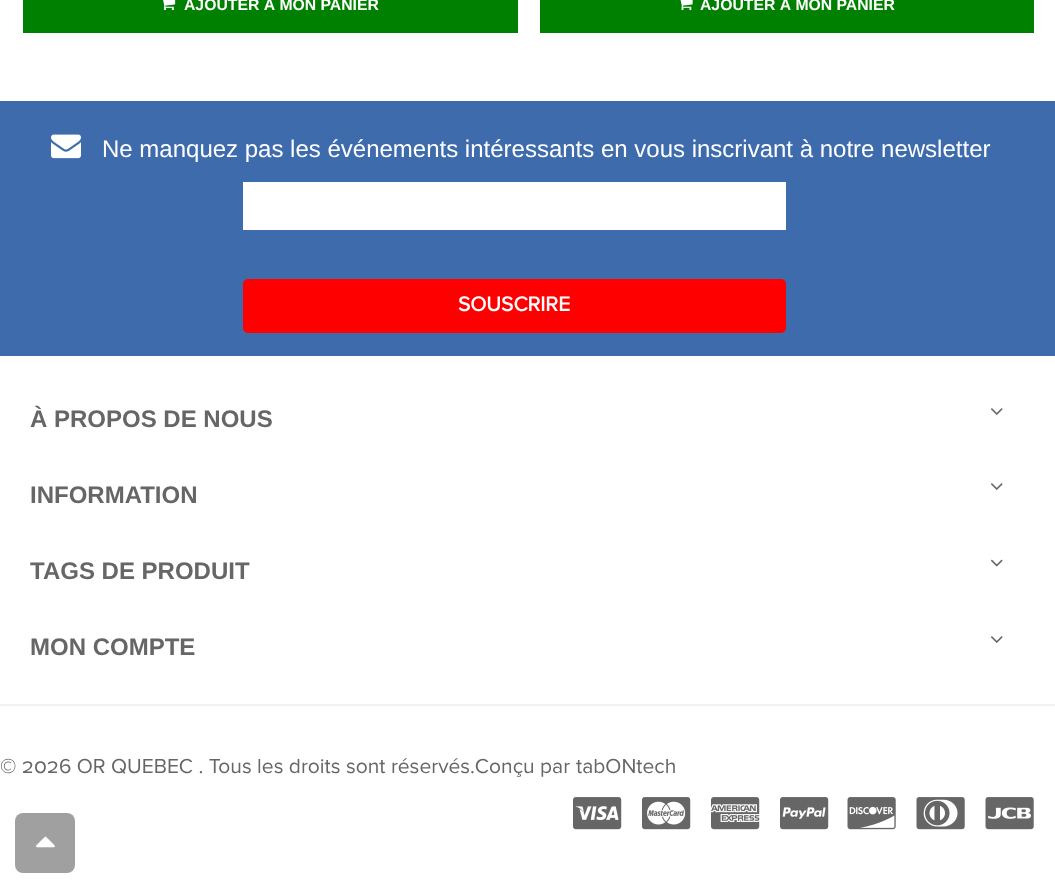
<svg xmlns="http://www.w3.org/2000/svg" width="1055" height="888">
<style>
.a{font:bold 15.75px Liberation Sans;fill:#fff}
.b{font:24px Liberation Sans;fill:#fff}
.c{font:bold 21px Proxima Nova;fill:#fff}
.d{font:bold 24px Liberation Sans;fill:#666}
.e{font:21px Proxima Nova;fill:#666}
</style>
<rect width="100%" height="100%" fill="#fff"/>
<path fill="#008000" d="M23 0h495v33H23z"/>
<image href="1.png" x="163" y="0" width="13" height="11"/>
<path fill="#008000" d="M540 0h494v33H540z"/>
<image href="2.png" x="680" y="0" width="13" height="11"/>
<path fill="#3d6bab" d="M0 101h1055v255H0z"/>
<image href="3.png" x="51" y="134" width="30" height="25"/>
<path fill="#fff" d="M243 182h543v48H243z"/>
<rect fill="#f00" x="243" y="279" width="543" height="54" rx="5"/>
<image href="4.png" x="991" y="408" width="12" height="7"/>
<image href="4.png" x="991" y="483" width="12" height="7"/>
<image href="5.png" x="991" y="559" width="12" height="8"/>
<image href="4.png" x="991" y="636" width="12" height="7"/>
<path fill="#f2f2f2" d="M0 704h1055v2H0z"/>
<image href="6.png" x="573" y="797" width="49" height="33"/>
<image href="7.png" x="642" y="797" width="49" height="33"/>
<image href="8.png" x="711" y="797" width="49" height="33"/>
<image href="9.png" x="780" y="797" width="49" height="33"/>
<image href="10.png" x="847" y="797" width="49" height="33"/>
<image href="11.png" x="916" y="797" width="49" height="33"/>
<image href="12.png" x="985" y="797" width="49" height="33"/>
<rect fill="#a0a0a0" x="15" y="813" width="60" height="60" rx="8"/>
<image href="13.png" x="36" y="836" width="19" height="12"/>
<text class="a" x="184" y="10">AJOUTER À MON PANIER</text>
<text class="a" x="700" y="10">AJOUTER À MON PANIER</text>
<text class="b" x="102" y="157">Ne manquez pas les événements intéressants en vous inscrivant à notre newsletter</text>
<text class="c" x="458" y="311">SOUSCRIRE</text>
<text class="d" x="30" y="427">À PROPOS DE NOUS</text>
<text class="d" x="30" y="503">INFORMATION</text>
<text class="d" x="30" y="579">TAGS DE PRODUIT</text>
<text class="d" x="30" y="655">MON COMPTE</text>
<text class="e" x="0" y="773">© 2026 OR QUEBEC . Tous les droits sont réservés.Conçu par</text>
<text class="e" x="576" y="773">tabONtech</text>
</svg>
